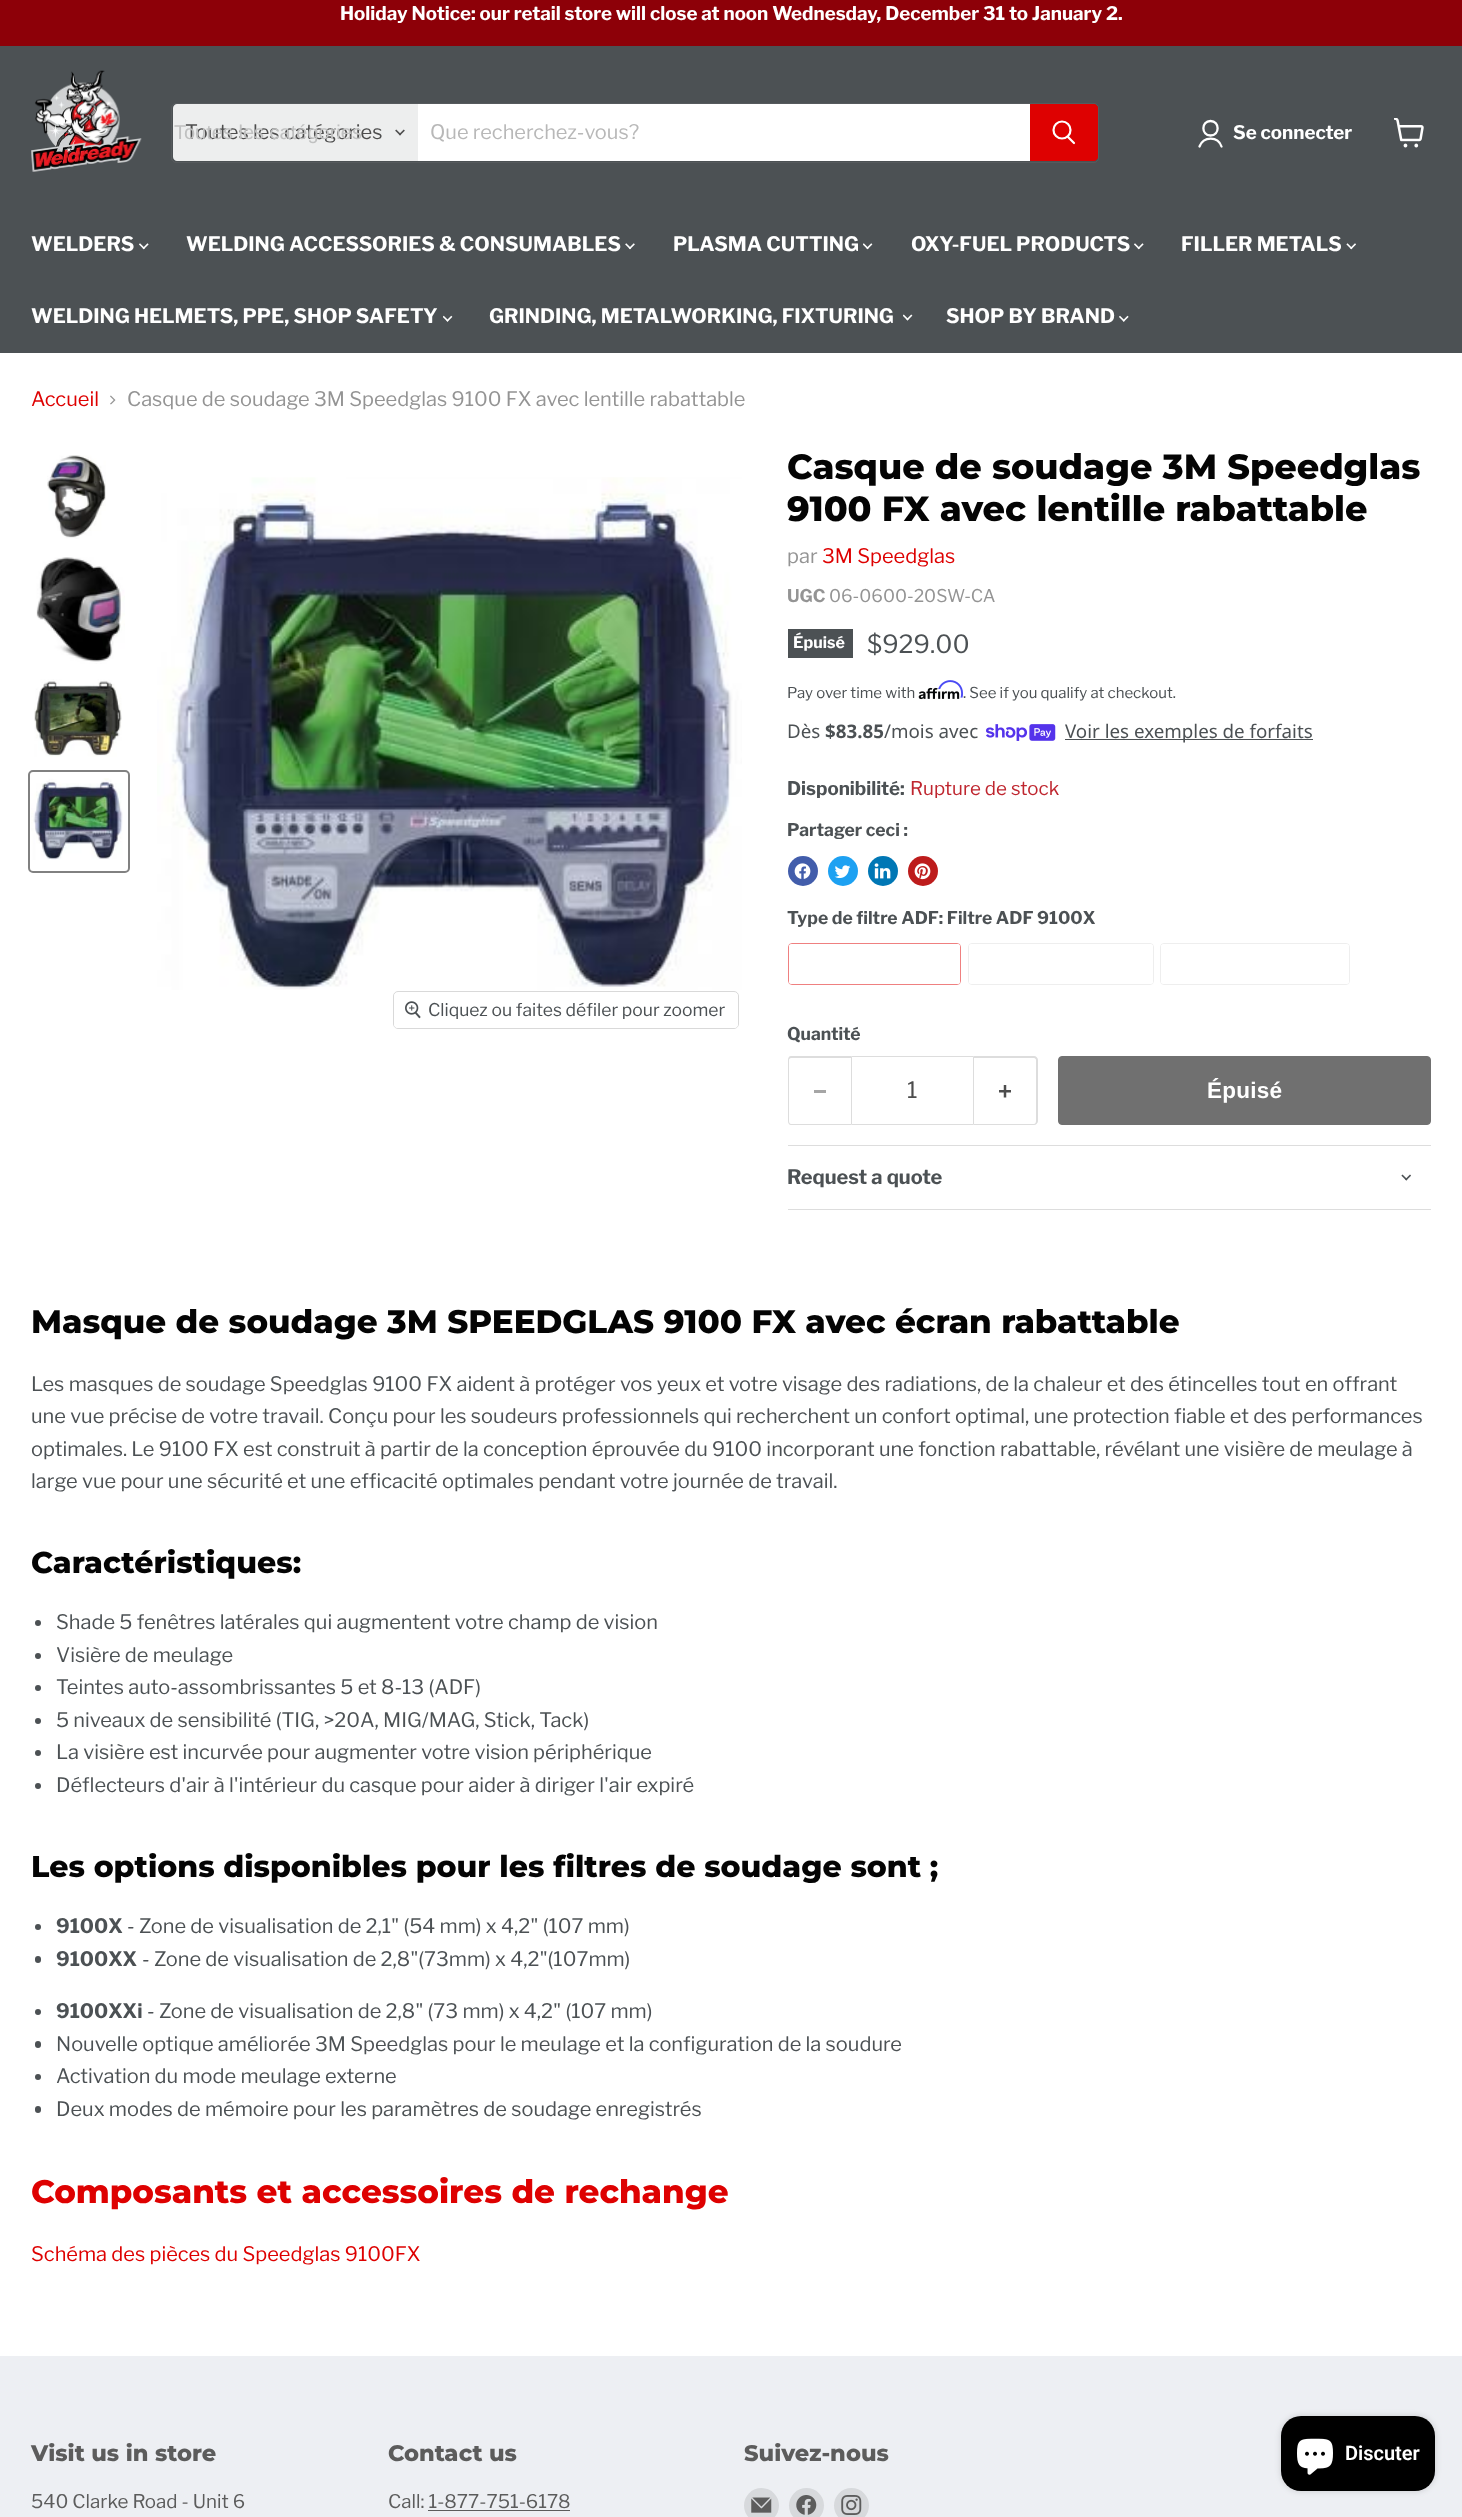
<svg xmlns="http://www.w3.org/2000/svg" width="1462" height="2517">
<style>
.a{font:bold 18.75px Libre Franklin;fill:#fff}
.b{font:20px Libre Franklin;fill:#4d4d4d}
.c{font:20px Liberation Sans;fill:#c0c1c1}
.d{font:20px Libre Franklin;fill:#b8b8b8}
.e{font:bold 20px Libre Franklin;fill:#fff}
.f{font:20px Libre Franklin;fill:#de0101}
.g{font:20px Libre Franklin;fill:#949494}
.h{font:17.5px Libre Franklin;fill:#4c5154}
.i{font:800 35px Montserrat;fill:#040404}
.j{font:bold 17.5px Libre Franklin;fill:#949494}
.k{font:17.5px Libre Franklin;fill:#949494}
.l{font:bold 16px Libre Franklin;fill:#fff}
.m{font:25px Libre Franklin;fill:#4c5154}
.n{font:15px Libre Franklin;fill:#4c5154}
.o{font:18.75px Noto Sans;fill:#4c5154}
.p{font:bold 18.75px Noto Sans;fill:#4c5154}
.q{font:bold 18.75px Libre Franklin;fill:#4c5154}
.r{font:18.75px Libre Franklin;fill:#bf262f}
.s{font:bold 17.5px Libre Franklin;fill:#4c5154}
.t{font:22.5px Libre Franklin;fill:#4d4d4d}
.u{font:bold 22.5px Arimo;letter-spacing:0.25px;fill:#fff}
.v{font:bold 20px Libre Franklin;fill:#4c5154}
.w{font:800 32.5px Montserrat;fill:#040404}
.x{font:20px Libre Franklin;fill:#4c5154}
.y{font:800 30px Montserrat;fill:#040404}
.z{font:800 32.5px Montserrat;fill:#de0101}
.a1{font:800 22.5px Montserrat;fill:#5c5c5c}
.b1{font:18.75px Libre Franklin;fill:#5c5c5c}
.c1{font:600 20px Roboto;fill:#fff}
</style>
<rect width="100%" height="100%" fill="#fff"/>
<path fill="#8d0008" d="M0 0h1462v46H0z"/>
<path fill="#4c5154" d="M0 46h1462v307H0z"/>
<image href="1.png" x="31" y="70" width="111" height="102"/>
<rect fill="none" stroke="#80808033" x="171.5" y="103.5" width="927" height="59" rx="4.5"/>
<path fill="#edeeee" d="M177 104h241v57h-241c-2 0-4-2-4-4v-49c0-2 2-4 4-4z"/>
<image href="2.png" x="395" y="129" width="10" height="7"/>
<path fill="#fff" d="M418 104h612v57H418z"/>
<path fill="#de0101" stroke="#de0101" d="M1030.5 104.5h63.5c2 0 3.5 1.5 3.5 3.5v49c0 2-1.5 3.5-3.5 3.5h-63.5z"/>
<path fill="none" stroke="#fff" stroke-width="2.2" stroke-linecap="round" d="M1074 143l-6-6"/>
<circle fill="none" stroke="#fff" stroke-width="2.2" cx="1062" cy="130" r="8.5"/>
<path fill="none" stroke="#fff" stroke-width="2.3" stroke-linecap="round" stroke-linejoin="round" d="M1210.5 135.5c9.5 0 9.5-14.5 0-14.5c-9.5 0-9.5 14.5 0 14.5zm11 11c-3.5-10.5-18-10.5-22 0"/>
<image href="3.png" x="1394" y="118" width="30" height="30"/>
<image href="4.png" x="139" y="243" width="10" height="7"/>
<image href="5.png" x="625" y="243" width="10" height="7"/>
<image href="6.png" x="863" y="243" width="10" height="7"/>
<image href="4.png" x="1134" y="243" width="10" height="7"/>
<image href="7.png" x="1346" y="243" width="10" height="7"/>
<image href="8.png" x="443" y="315" width="10" height="7"/>
<image href="9.png" x="903" y="314" width="10" height="7"/>
<image href="10.png" x="1119" y="315" width="10" height="7"/>
<image href="11.png" x="110" y="395" width="6" height="10"/>
<image href="12.png" x="47" y="455" width="59" height="84"/>
<image href="13.png" x="36" y="557" width="89" height="107"/>
<image href="14.png" x="34" y="679" width="88" height="78"/>
<rect fill="none" stroke="#818181" stroke-width="2" x="29" y="771" width="100" height="101" rx="4"/>
<image href="15.png" x="31" y="778" width="92" height="82"/>
<image href="16.png" x="157" y="477" width="585" height="513"/>
<rect fill="none" stroke="#d9d9d9" x="393.5" y="991.5" width="345" height="37" rx="4.5"/>
<rect fill="#ffffffe6" x="394" y="993" width="344" height="35" rx="4"/>
<image href="17.png" x="405" y="1001" width="16" height="18"/>
<path fill="#4c5154" d="M788 629h65v29H788z"/>
<image href="19.png" x="918" y="687" width="42" height="13"/>
<image href="18.png" x="938" y="680" width="25" height="18"/>
<image href="20.png" x="986" y="724" width="70" height="17"/>
<path fill="#4c5154" d="M1065 739h248v1H1065z"/>
<circle fill="#425dab" cx="803" cy="871" r="15"/>
<image href="21.png" x="794" y="863" width="17" height="16"/>
<circle fill="#1da1f2" cx="843" cy="871" r="15"/>
<image href="22.png" x="834" y="865" width="17" height="13"/>
<circle fill="#0077b5" cx="883" cy="871" r="15"/>
<image href="23.png" x="874" y="863" width="17" height="16"/>
<circle fill="#bd1c1c" cx="923" cy="871" r="15"/>
<image href="24.png" x="914" y="863" width="17" height="17"/>
<rect fill="none" stroke="#ef8080" x="788.5" y="943.5" width="172" height="41" rx="3.5"/>
<path fill="#fff" d="M792 944c-2 0-3 1-3 2v36c0 1 1 2 3 2h166c1 0 2-1 2-2v-36c0-1-1-2-2-2z"/>
<rect fill="none" stroke="#eee" x="968.5" y="943.5" width="185" height="41" rx="3.5"/>
<path fill="#fff" d="M972 944c-2 0-3 1-3 2v36c0 1 1 2 3 2h178c2 0 3-1 3-2v-36c0-1-1-2-3-2z"/>
<rect fill="none" stroke="#eee" x="1160.5" y="943.5" width="189" height="41" rx="3.5"/>
<path fill="#fff" d="M1164 944c-2 0-3 1-3 2v36c0 1 1 2 3 2h182c2 0 3-1 3-2v-36c0-1-1-2-3-2z"/>
<path fill="#ddd" fill-rule="evenodd" d="M791 1056h60v69h-60c-2 0-3-2-3-4v-61c0-2 1-4 3-4zm0 2h60v66h-60c-1 0-2-1-2-3v-61c0-1 1-2 2-2z"/>
<path fill="#a6a6a6" d="M814 1090h12v3H814z"/>
<path fill="none" stroke="#ddd" d="M851.5 1056.5h122v68H851.5z"/>
<path fill="#ddd" fill-rule="evenodd" d="M974 1056h60c2 0 4 2 4 4v61c0 2-2 4-4 4h-60zm0 2h60c1 0 2 1 2 2v61c0 2-1 3-2 3h-60z"/>
<image href="25.png" x="999" y="1085" width="12" height="13"/>
<rect fill="#707070" stroke="#707070" x="1058.5" y="1056.5" width="372" height="68" rx="3.5"/>
<path fill="#ddd" d="M788 1145h643v1H788z"/>
<path fill="#ddd" d="M788 1209h643v1H788z"/>
<image href="26.png" x="1401" y="1174" width="10" height="7"/>
<circle fill="#4c5154" cx="38" cy="1623" r="3"/>
<circle fill="#4c5154" cx="38" cy="1656" r="3"/>
<circle fill="#4c5154" cx="38" cy="1688" r="3"/>
<circle fill="#4c5154" cx="38" cy="1721" r="3"/>
<circle fill="#4c5154" cx="38" cy="1753" r="3"/>
<circle fill="#4c5154" cx="38" cy="1786" r="3"/>
<circle fill="#4c5154" cx="38" cy="1927" r="3"/>
<rect fill="#4c5154" x="35" y="1956" width="6" height="7" rx="3"/>
<circle fill="#4c5154" cx="38" cy="2012" r="3"/>
<rect fill="#4c5154" x="35" y="2041" width="6" height="7" rx="3"/>
<circle fill="#4c5154" cx="38" cy="2077" r="3"/>
<rect fill="#4c5154" x="35" y="2106" width="6" height="7" rx="3"/>
<path fill="#edeff3" d="M0 2356h1462v161H0z"/>
<path fill="#5c5c5c" d="M428 2510h142v1H428z"/>
<circle fill="#d7d9dc" cx="761.5" cy="2505.5" r="17.5"/>
<image href="27.png" x="751" y="2497" width="21" height="16"/>
<circle fill="#d7d9dc" cx="806.5" cy="2505.5" r="17.5"/>
<image href="28.png" x="796" y="2495" width="21" height="20"/>
<circle fill="#d7d9dc" cx="851.5" cy="2505.5" r="17.5"/>
<image href="29.png" x="841" y="2495" width="21" height="20"/>
<rect fill="#00000026" filter="blur(3px)" x="1281" y="2416" width="154" height="75" rx="20"/>
<rect fill="#000" x="1281" y="2416" width="154" height="75" rx="20"/>
<image href="30.png" x="1297" y="2438" width="36" height="37"/>
<text class="a" x="340" y="20">Holiday Notice: our retail store will close at noon Wednesday, December 31 to January 2.</text>
<text class="b" x="185" y="139">Toutes les catégories</text>
<text class="c" x="174" y="139">Toutes les catégories</text>
<text class="d" x="430" y="139">Que recherchez-vous?</text>
<text class="a" x="1233" y="139">Se connecter</text>
<text class="e" x="31" y="251">WELDERS</text>
<text class="e" x="186" y="251">WELDING ACCESSORIES &amp; CONSUMABLES</text>
<text class="e" x="673" y="251">PLASMA CUTTING</text>
<text class="e" x="911" y="251">OXY-FUEL PRODUCTS</text>
<text class="e" x="1181" y="251">FILLER METALS</text>
<text class="e" x="31" y="323">WELDING HELMETS, PPE, SHOP SAFETY</text>
<text class="e" x="489" y="323">GRINDING, METALWORKING, FIXTURING</text>
<text class="e" x="946" y="323">SHOP BY BRAND</text>
<text class="f" x="31" y="406">Accueil</text>
<text class="g" x="127" y="406">Casque de soudage 3M Speedglas 9100 FX avec lentille rabattable</text>
<text class="h" x="428" y="1016">Cliquez ou faites défiler pour zoomer</text>
<text class="i" x="787" y="479">Casque de soudage 3M Speedglas</text>
<text class="i" x="787" y="521">9100 FX avec lentille rabattable</text>
<text class="g" x="787" y="563">par</text>
<text class="f" x="822" y="563">3M Speedglas</text>
<text class="j" x="787" y="602">UGC</text>
<text class="k" x="829" y="602">06-0600-20SW-CA</text>
<text class="l" x="793" y="648">Épuisé</text>
<text class="m" x="867" y="653">$929.00</text>
<text class="n" x="787" y="698">Pay over time with</text>
<text class="n" x="963" y="698">. See if you qualify at checkout.</text>
<text class="o" x="787" y="738">Dès</text>
<text class="p" x="825" y="738">$83.85</text>
<text class="o" x="884" y="738">/mois avec</text>
<text class="o" x="1065" y="738">Voir les exemples de forfaits</text>
<text class="q" x="787" y="795">Disponibilité:</text>
<text class="r" x="910" y="795">Rupture de stock</text>
<text class="s" x="787" y="836">Partager ceci :</text>
<text class="s" x="787" y="924">Type de filtre ADF: Filtre ADF 9100X</text>
<text class="s" x="787" y="1040">Quantité</text>
<text class="t" x="907" y="1098">1</text>
<text class="u" x="1207" y="1098">Épuisé</text>
<text class="v" x="787" y="1184">Request a quote</text>
<text class="w" x="31" y="1333">Masque de soudage 3M SPEEDGLAS 9100 FX avec écran rabattable</text>
<text class="x" x="31" y="1391">Les masques de soudage Speedglas 9100 FX aident à protéger vos yeux et votre visage des radiations, de la chaleur et des étincelles tout en offrant</text>
<text class="x" x="31" y="1423">une vue précise de votre travail. Conçu pour les soudeurs professionnels qui recherchent un confort optimal, une protection fiable et des performances</text>
<text class="x" x="31" y="1456">optimales. Le 9100 FX est construit à partir de la conception éprouvée du 9100 incorporant une fonction rabattable, révélant une visière de meulage à</text>
<text class="x" x="31" y="1488">large vue pour une sécurité et une efficacité optimales pendant votre journée de travail.</text>
<text class="y" x="31" y="1573">Caractéristiques:</text>
<text class="x" x="56" y="1629">Shade 5 fenêtres latérales qui augmentent votre champ de vision</text>
<text class="x" x="56" y="1662">Visière de meulage</text>
<text class="x" x="56" y="1694">Teintes auto-assombrissantes 5 et 8-13 (ADF)</text>
<text class="x" x="56" y="1727">5 niveaux de sensibilité (TIG, &gt;20A, MIG/MAG, Stick, Tack)</text>
<text class="x" x="56" y="1759">La visière est incurvée pour augmenter votre vision périphérique</text>
<text class="x" x="56" y="1792">Déflecteurs d'air à l'intérieur du casque pour aider à diriger l'air expiré</text>
<text class="y" x="31" y="1877">Les options disponibles pour les filtres de soudage sont ;</text>
<text class="v" x="56" y="1933">9100X</text>
<text class="x" x="127" y="1933">- Zone de visualisation de 2,1" (54 mm) x 4,2" (107 mm)</text>
<text class="v" x="56" y="1966">9100XX</text>
<text class="x" x="142" y="1966">- Zone de visualisation de 2,8"(73mm) x 4,2"(107mm)</text>
<text class="v" x="56" y="2018">9100XXi</text>
<text class="x" x="147" y="2018">- Zone de visualisation de 2,8" (73 mm) x 4,2" (107 mm)</text>
<text class="x" x="56" y="2051">Nouvelle optique améliorée 3M Speedglas pour le meulage et la configuration de la soudure</text>
<text class="x" x="56" y="2083">Activation du mode meulage externe</text>
<text class="x" x="56" y="2116">Deux modes de mémoire pour les paramètres de soudage enregistrés</text>
<text class="z" x="31" y="2203">Composants et accessoires de rechange</text>
<text class="f" x="31" y="2261">Schéma des pièces du Speedglas 9100FX</text>
<text class="a1" x="31" y="2461">Visit us in store</text>
<text class="b1" x="31" y="2508">540 Clarke Road - Unit 6</text>
<text class="a1" x="388" y="2461">Contact us</text>
<text class="b1" x="388" y="2508">Call: 1-877-751-6178</text>
<text class="a1" x="744" y="2461">Suivez-nous</text>
<text class="c1" x="1345" y="2460">Discuter</text>
</svg>
